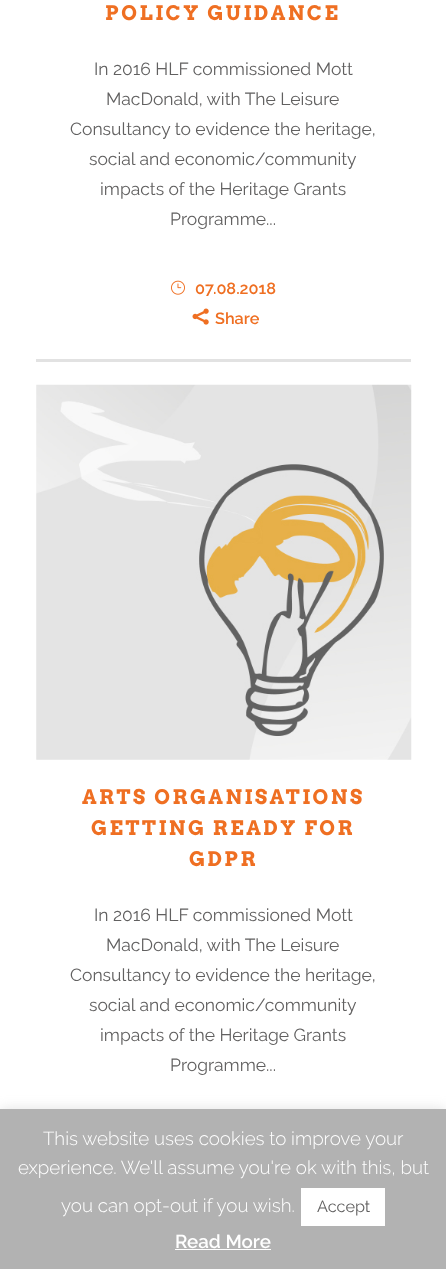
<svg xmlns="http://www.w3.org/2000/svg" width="446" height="1269">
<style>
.a{font:bold 20px Arvo;letter-spacing:2.5px;fill:#ef6f22}
.b{font:17.5px Raleway;fill:#616060}
.c{font:600 16.25px Raleway;fill:#ef6f22}
.d{font:300 18.75px Raleway;fill:#fff}
.e{font:16.25px Raleway;fill:#616060}
.f{font:600 18.75px Raleway;fill:#fff}
</style>
<rect width="100%" height="100%" fill="#fff"/>
<path fill="#e2e2e2" d="M36 359h375v3H36z"/>
<image href="1.png" x="171" y="280" width="14" height="15"/>
<image href="2.png" x="192" y="308" width="17" height="17"/>
<image href="3.png" x="36" y="384" width="376" height="376"/>
<path fill="#acabab4d" filter="blur(6px)" d="M0 1108h446v161H0z"/>
<path fill="#b2b2b2" d="M0 1109h446v160H0z"/>
<path fill="#fff" d="M301 1188h84v38H301z"/>
<path fill="#fff" d="M175 1249h96v1H175z"/>
<text class="a" x="105" y="20">POLICY GUIDANCE</text>
<text class="b" x="94" y="75">In 2016 HLF commissioned Mott</text>
<text class="b" x="106" y="105">MacDonald, with The Leisure</text>
<text class="b" x="70" y="135">Consultancy to evidence the heritage,</text>
<text class="b" x="89" y="165">social and economic/community</text>
<text class="b" x="100" y="195">impacts of the Heritage Grants</text>
<text class="b" x="170" y="225">Programme...</text>
<text class="c" x="195" y="294">07.08.2018</text>
<text class="c" x="215" y="324">Share</text>
<text class="a" x="82" y="804">ARTS ORGANISATIONS</text>
<text class="a" x="91" y="835">GETTING READY FOR</text>
<text class="a" x="189" y="866">GDPR</text>
<text class="b" x="94" y="921">In 2016 HLF commissioned Mott</text>
<text class="b" x="106" y="951">MacDonald, with The Leisure</text>
<text class="b" x="70" y="981">Consultancy to evidence the heritage,</text>
<text class="b" x="89" y="1011">social and economic/community</text>
<text class="b" x="100" y="1041">impacts of the Heritage Grants</text>
<text class="b" x="170" y="1071">Programme...</text>
<text class="d" x="43" y="1145">This website uses cookies to improve your</text>
<text class="d" x="18" y="1174">experience. We'll assume you're ok with this, but</text>
<text class="d" x="61" y="1212">you can opt-out if you wish.</text>
<text class="e" x="317" y="1212">Accept</text>
<text class="f" x="175" y="1248">Read More</text>
</svg>
